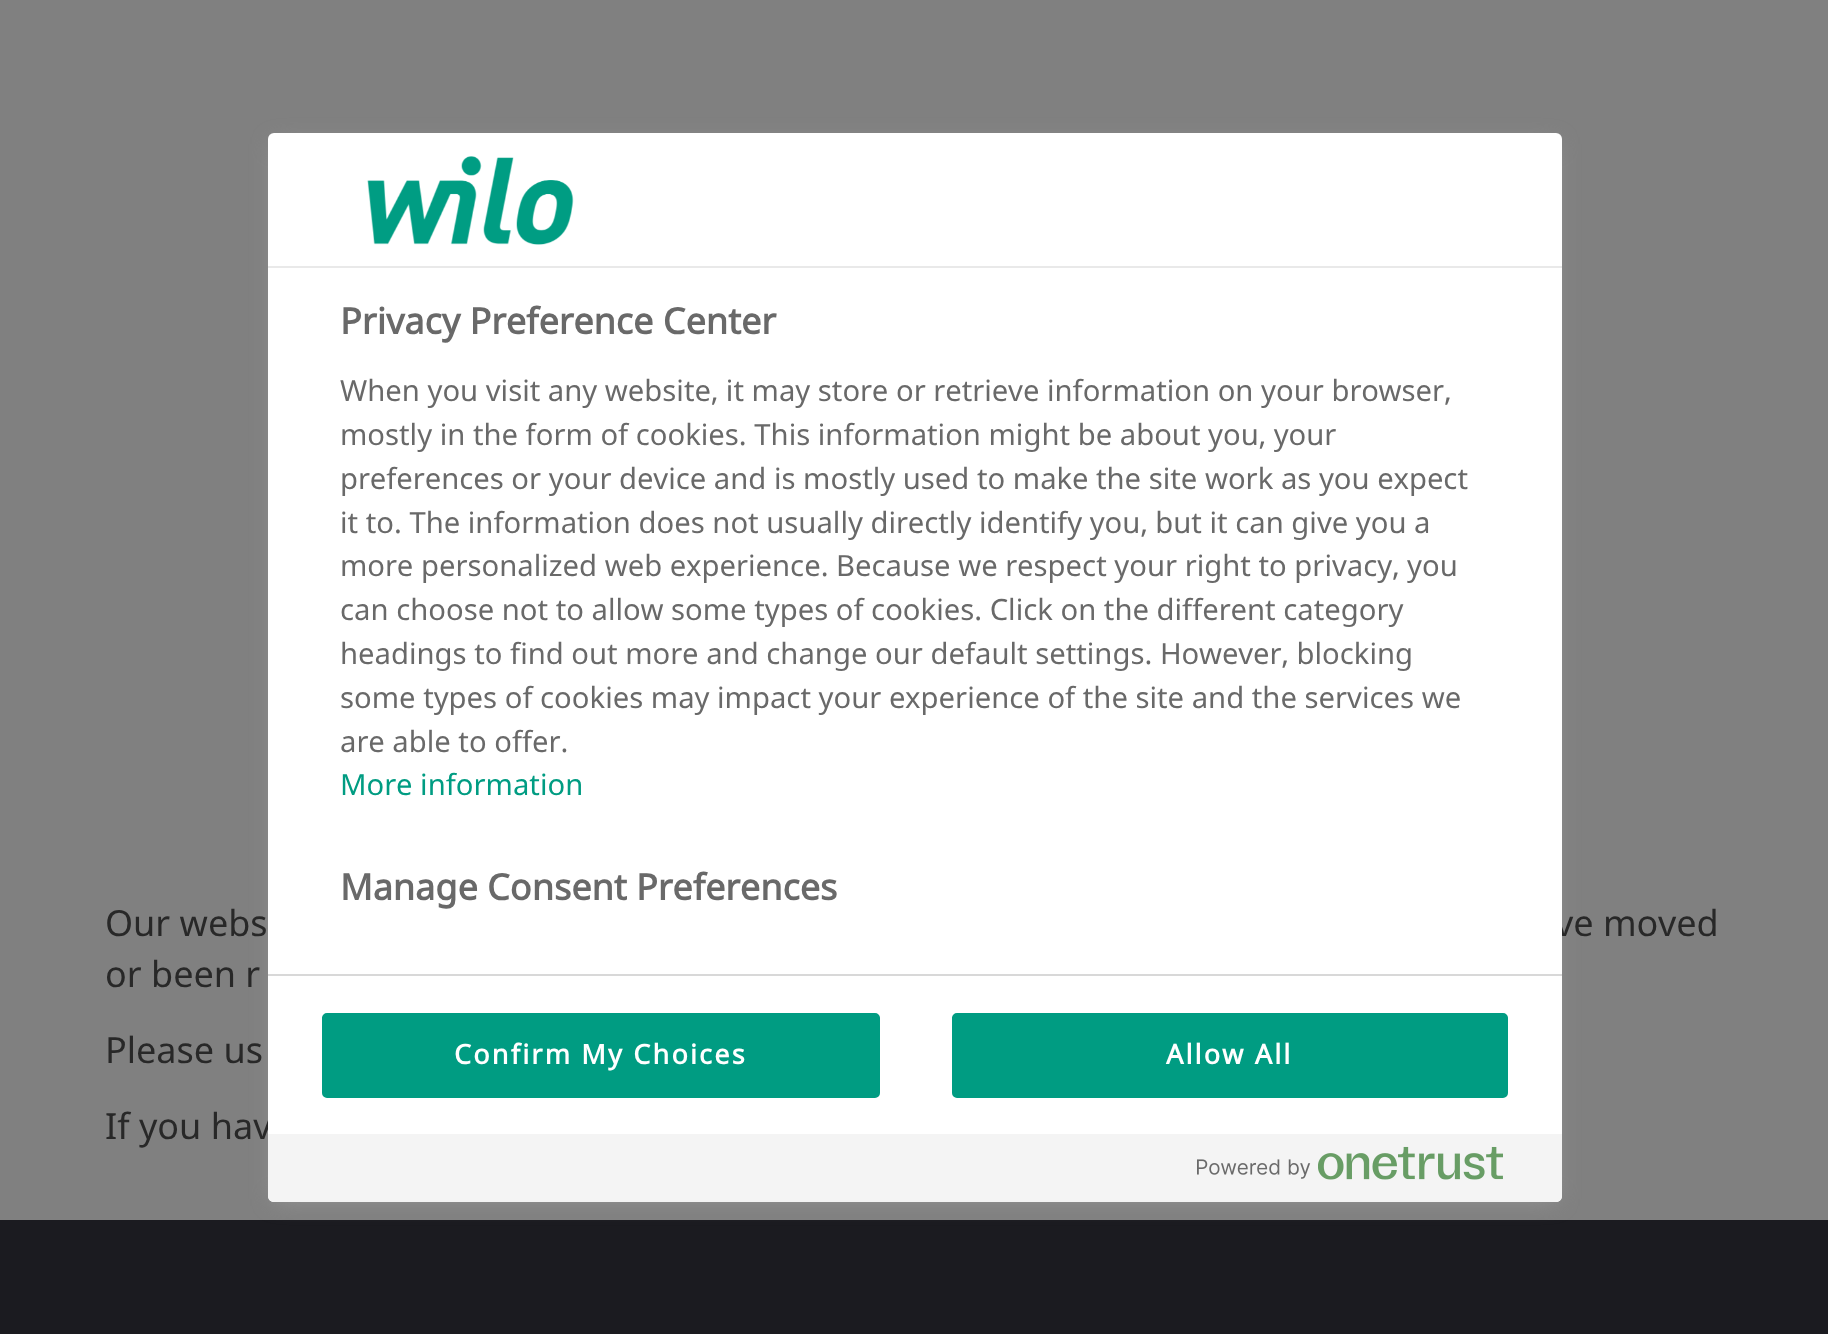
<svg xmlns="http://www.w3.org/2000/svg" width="1828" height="1334">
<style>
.a{font:36px Noto Sans;fill:#282828}
.b{font:bold 27px Noto Sans;letter-spacing:2.2px;fill:#fff}
.c{font:29.25px Noto Sans;fill:#009c82}
.d{font:29.25px Noto Sans;fill:#696969}
.e{font:bold 36px Noto Sans;fill:#696969}
</style>
<rect width="100%" height="100%" fill="#808080"/>
<path fill="#1b1b20" d="M0 1220h1828v114H0z"/>
<path fill="#999" filter="blur(11px)" d="M275 144h1280v1055H275z"/>
<text class="a" x="105" y="936">Our webs</text>
<text class="a" x="1555" y="936">ve moved</text>
<text class="a" x="105" y="987">or been r</text>
<text class="a" x="105" y="1063">Please us</text>
<text class="a" x="105" y="1139">If you hav</text>
<rect fill="#fff" x="268" y="133" width="1294" height="1069" rx="6"/>
<rect fill="#009c82" stroke="#009c82" stroke-width="2" x="953" y="1014" width="554" height="83" rx="4"/>
<text class="b" x="1166" y="1064">Allow All</text>
<path fill="#f4f4f4" d="M268 1134h1294v62c0 3.5-2.5 6-6 6h-1282c-3.5 0-6-2.5-6-6z"/>
<image href="2.png" x="1197" y="1146" width="306" height="34"/>
<rect fill="#009c82" stroke="#009c82" stroke-width="2" x="323" y="1014" width="556" height="83" rx="4"/>
<text class="b" x="454" y="1064">Confirm My Choices</text>
<path fill="#d8d8d8" d="M268 974h1294v2H268z"/>
<text class="c" x="340" y="795">More information</text>
<text class="d" x="340" y="752">are able to offer.</text>
<text class="d" x="340" y="708">some types of cookies may impact your experience of the site and the services we</text>
<text class="d" x="340" y="664">headings to find out more and change our default settings. However, blocking</text>
<text class="d" x="340" y="620">can choose not to allow some types of cookies. Click on the different category</text>
<text class="d" x="340" y="576">more personalized web experience. Because we respect your right to privacy, you</text>
<text class="d" x="340" y="533">it to. The information does not usually directly identify you, but it can give you a</text>
<text class="d" x="340" y="489">preferences or your device and is mostly used to make the site work as you expect</text>
<text class="d" x="340" y="445">mostly in the form of cookies. This information might be about you, your</text>
<text class="d" x="340" y="401">When you visit any website, it may store or retrieve information on your browser,</text>
<text class="e" x="340" y="900">Manage Consent Preferences</text>
<text class="e" x="340" y="334">Privacy Preference Center</text>
<image href="1.png" x="367" y="156" width="207" height="89"/>
<path fill="#e9e9e9" d="M268 266h1294v2H268z"/>
</svg>
